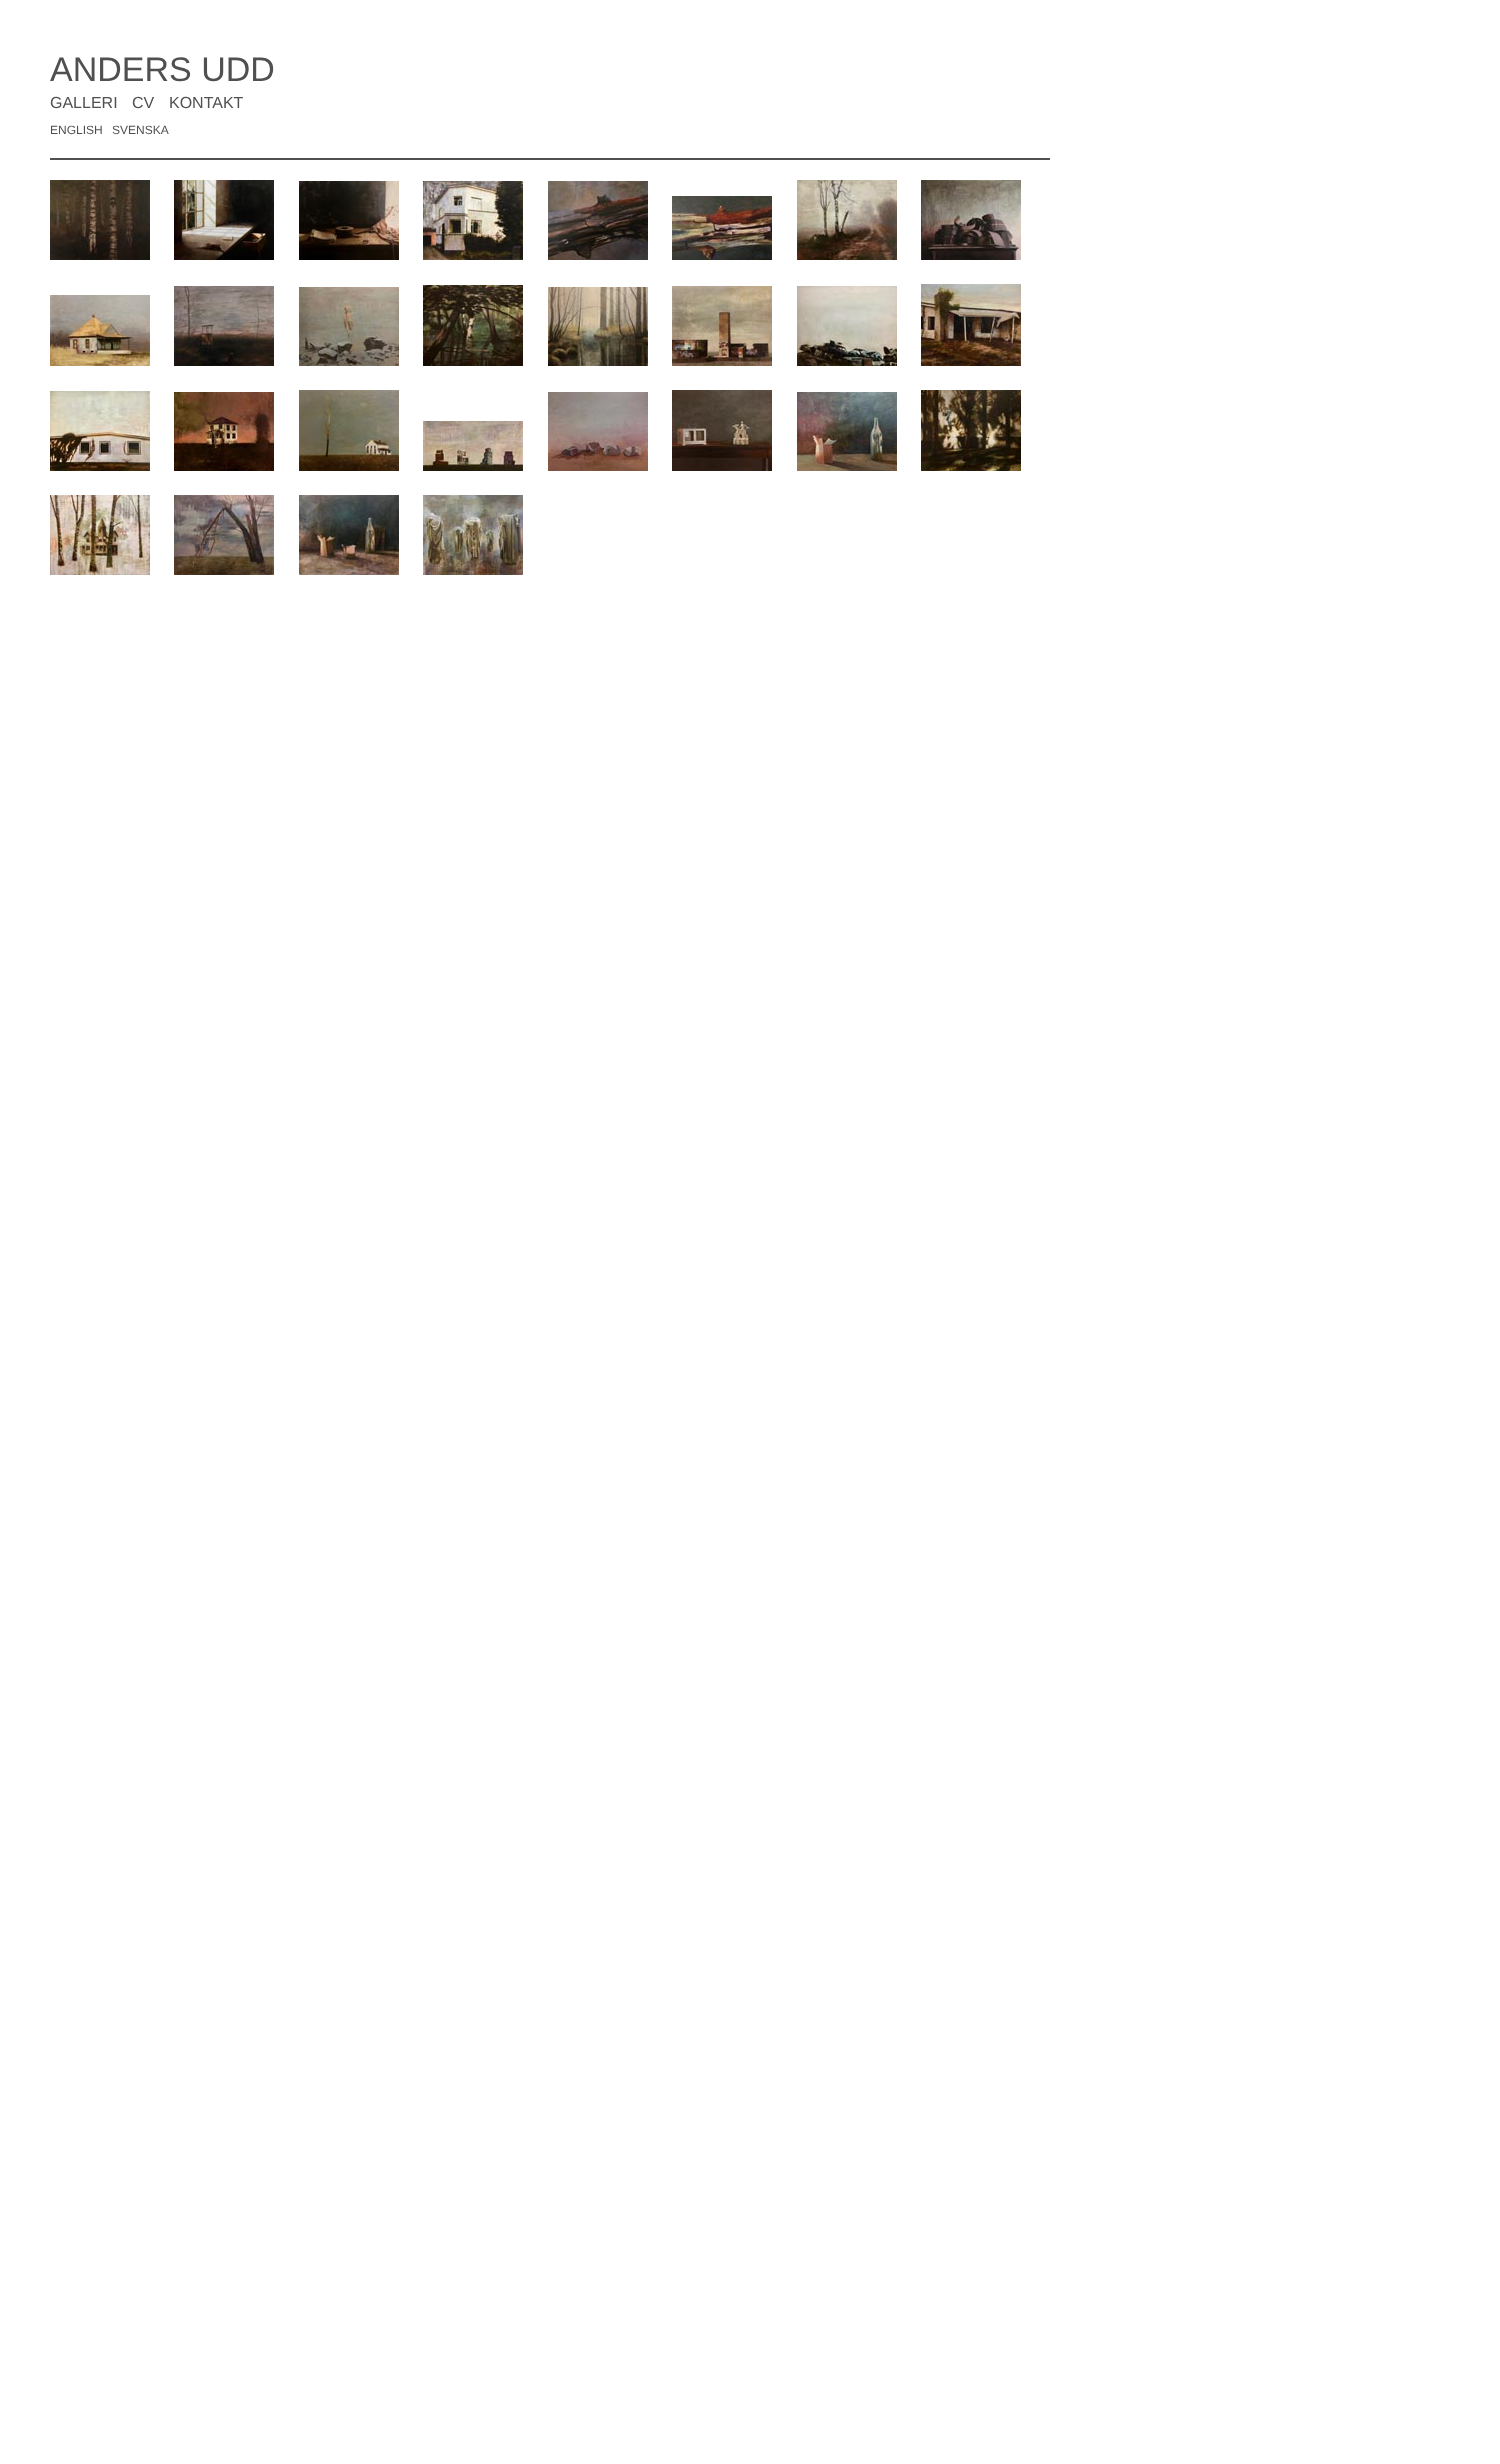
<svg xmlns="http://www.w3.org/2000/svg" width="1500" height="2464">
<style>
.a{font:34px Liberation Sans;fill:#505050}
.b{font:16px Liberation Sans;fill:#505050}
.c{font:12px Liberation Sans;fill:#505050}
</style>
<rect width="100%" height="100%" fill="#fff"/>
<path fill="#505050" d="M50 158h1000v2H50z"/>
<image href="1.png" x="50" y="180" width="100" height="80"/>
<image href="2.png" x="174" y="180" width="100" height="80"/>
<image href="3.png" x="299" y="181" width="100" height="79"/>
<image href="4.png" x="423" y="181" width="100" height="79"/>
<image href="5.png" x="548" y="181" width="100" height="79"/>
<image href="6.png" x="672" y="196" width="100" height="64"/>
<image href="7.png" x="797" y="180" width="100" height="80"/>
<image href="8.png" x="921" y="180" width="100" height="80"/>
<image href="9.png" x="50" y="295" width="100" height="71"/>
<image href="10.png" x="174" y="286" width="100" height="80"/>
<image href="11.png" x="299" y="287" width="100" height="79"/>
<image href="12.png" x="423" y="285" width="100" height="81"/>
<image href="13.png" x="548" y="287" width="100" height="79"/>
<image href="14.png" x="672" y="286" width="100" height="80"/>
<image href="15.png" x="797" y="286" width="100" height="80"/>
<image href="16.png" x="921" y="284" width="100" height="82"/>
<image href="17.png" x="50" y="391" width="100" height="80"/>
<image href="18.png" x="174" y="392" width="100" height="79"/>
<image href="19.png" x="299" y="390" width="100" height="81"/>
<image href="20.png" x="423" y="421" width="100" height="50"/>
<image href="21.png" x="548" y="392" width="100" height="79"/>
<image href="22.png" x="672" y="390" width="100" height="81"/>
<image href="23.png" x="797" y="392" width="100" height="79"/>
<image href="24.png" x="921" y="390" width="100" height="81"/>
<image href="25.png" x="50" y="495" width="100" height="80"/>
<image href="26.png" x="174" y="495" width="100" height="80"/>
<image href="27.png" x="299" y="495" width="100" height="80"/>
<image href="28.png" x="423" y="495" width="100" height="80"/>
<text class="a" x="50" y="81">ANDERS UDD</text>
<text class="b" x="50" y="108">GALLERI</text>
<text class="b" x="132" y="108">CV</text>
<text class="b" x="169" y="108">KONTAKT</text>
<text class="c" x="50" y="134">ENGLISH</text>
<text class="c" x="112" y="134">SVENSKA</text>
</svg>
